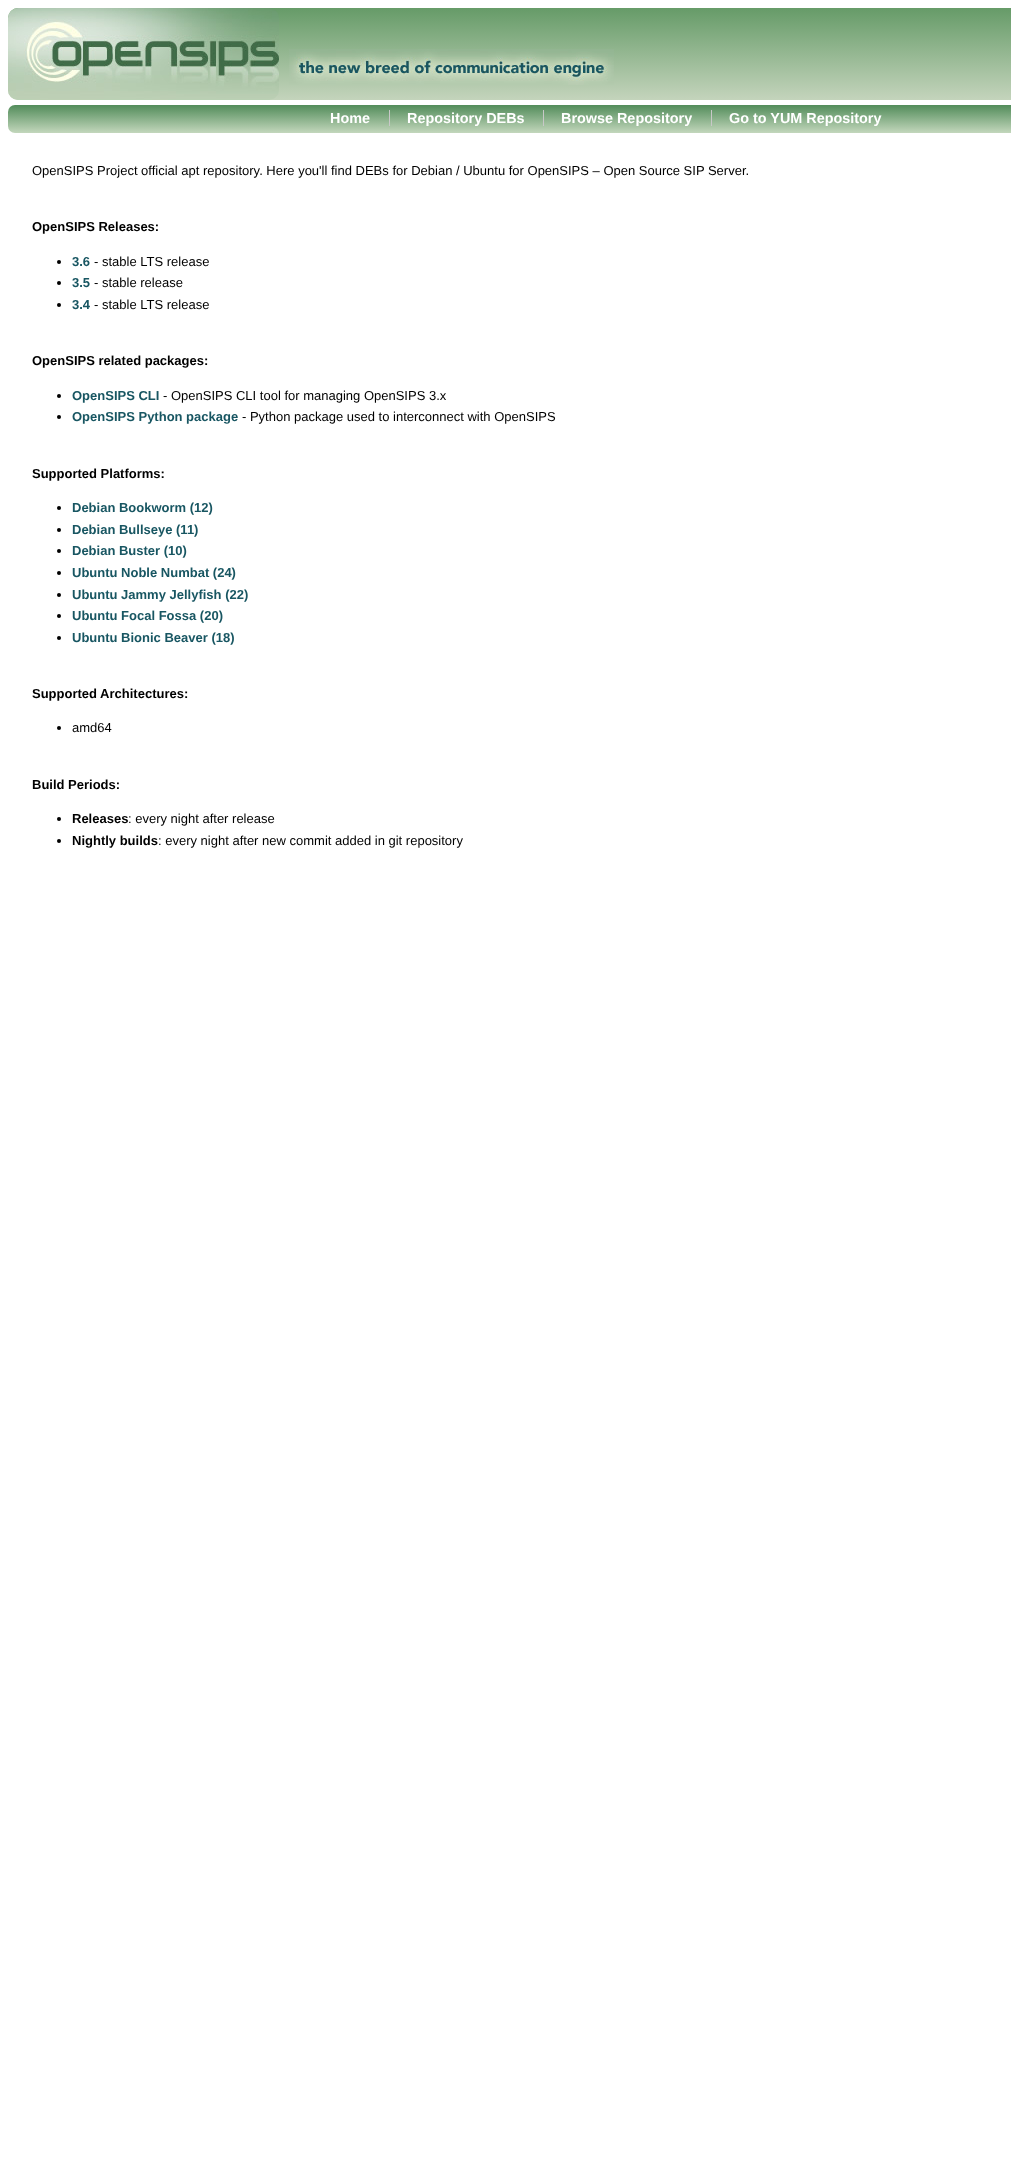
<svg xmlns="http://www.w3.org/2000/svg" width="1011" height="2166">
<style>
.a{font:bold 14.4px Liberation Sans;fill:#fff}
.b{font:13px Liberation Sans;fill:#000}
.c{font:bold 13px Liberation Sans;fill:#000}
.d{font:bold 13px Liberation Sans;fill:#185662}
</style>
<defs>
<linearGradient id="g1" gradientUnits="userSpaceOnUse" x1="608" y1="8" x2="608" y2="100"><stop offset="0" stop-color="#669b68"/><stop offset="1" stop-color="#c4d4bc"/></linearGradient>
<linearGradient id="g2" gradientUnits="userSpaceOnUse" x1="608" y1="105" x2="608" y2="133"><stop offset="0" stop-color="#528c5a"/><stop offset="1" stop-color="#c3d7bc"/></linearGradient>
</defs>
<rect width="100%" height="100%" fill="#fff"/>
<rect fill="url(#g1)" x="8" y="8" width="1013" height="92" rx="10"/>
<image href="1.png" x="8" y="8" width="271" height="92"/>
<image href="2.png" x="289" y="49" width="325" height="36"/>
<rect fill="url(#g2)" x="8" y="105" width="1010" height="28" rx="7"/>
<path fill="#c8c8c8" d="M389 110h1v16H389z"/>
<path fill="#c8c8c8" d="M543 110h1v16H543z"/>
<path fill="#c8c8c8" d="M711 110h1v16H711z"/>
<circle fill="#000" cx="59" cy="262" r="2"/>
<circle fill="#000" cx="59" cy="283" r="2"/>
<circle fill="#000" cx="59" cy="305" r="2"/>
<circle fill="#000" cx="59" cy="396" r="2"/>
<circle fill="#000" cx="59" cy="417" r="2"/>
<circle fill="#000" cx="59" cy="508" r="2"/>
<circle fill="#000" cx="59" cy="530" r="2"/>
<circle fill="#000" cx="59" cy="551" r="2"/>
<circle fill="#000" cx="59" cy="573" r="2"/>
<circle fill="#000" cx="59" cy="595" r="2"/>
<circle fill="#000" cx="59" cy="616" r="2"/>
<circle fill="#000" cx="59" cy="638" r="2"/>
<circle fill="#000" cx="59" cy="728" r="2"/>
<circle fill="#000" cx="59" cy="819" r="2"/>
<circle fill="#000" cx="59" cy="841" r="2"/>
<text class="a" x="330" y="123">Home</text>
<text class="a" x="407" y="123">Repository DEBs</text>
<text class="a" x="561" y="123">Browse Repository</text>
<text class="a" x="729" y="123">Go to YUM Repository</text>
<text class="b" x="32" y="175">OpenSIPS Project official apt repository. Here you'll find DEBs for Debian / Ubuntu for OpenSIPS – Open Source SIP Server.</text>
<text class="c" x="32" y="231">OpenSIPS Releases:</text>
<text class="d" x="72" y="266">3.6</text>
<text class="b" x="94" y="266">- stable LTS release</text>
<text class="d" x="72" y="287">3.5</text>
<text class="b" x="94" y="287">- stable release</text>
<text class="d" x="72" y="309">3.4</text>
<text class="b" x="94" y="309">- stable LTS release</text>
<text class="c" x="32" y="365">OpenSIPS related packages:</text>
<text class="d" x="72" y="400">OpenSIPS CLI</text>
<text class="b" x="163" y="400">- OpenSIPS CLI tool for managing OpenSIPS 3.x</text>
<text class="d" x="72" y="421">OpenSIPS Python package</text>
<text class="b" x="242" y="421">- Python package used to interconnect with OpenSIPS</text>
<text class="c" x="32" y="478">Supported Platforms:</text>
<text class="d" x="72" y="512">Debian Bookworm (12)</text>
<text class="d" x="72" y="534">Debian Bullseye (11)</text>
<text class="d" x="72" y="555">Debian Buster (10)</text>
<text class="d" x="72" y="577">Ubuntu Noble Numbat (24)</text>
<text class="d" x="72" y="599">Ubuntu Jammy Jellyfish (22)</text>
<text class="d" x="72" y="620">Ubuntu Focal Fossa (20)</text>
<text class="d" x="72" y="642">Ubuntu Bionic Beaver (18)</text>
<text class="c" x="32" y="698">Supported Architectures:</text>
<text class="b" x="72" y="732">amd64</text>
<text class="c" x="32" y="789">Build Periods:</text>
<text class="c" x="72" y="823">Releases</text>
<text class="b" x="128" y="823">: every night after release</text>
<text class="c" x="72" y="845">Nightly builds</text>
<text class="b" x="158" y="845">: every night after new commit added in git repository</text>
</svg>
